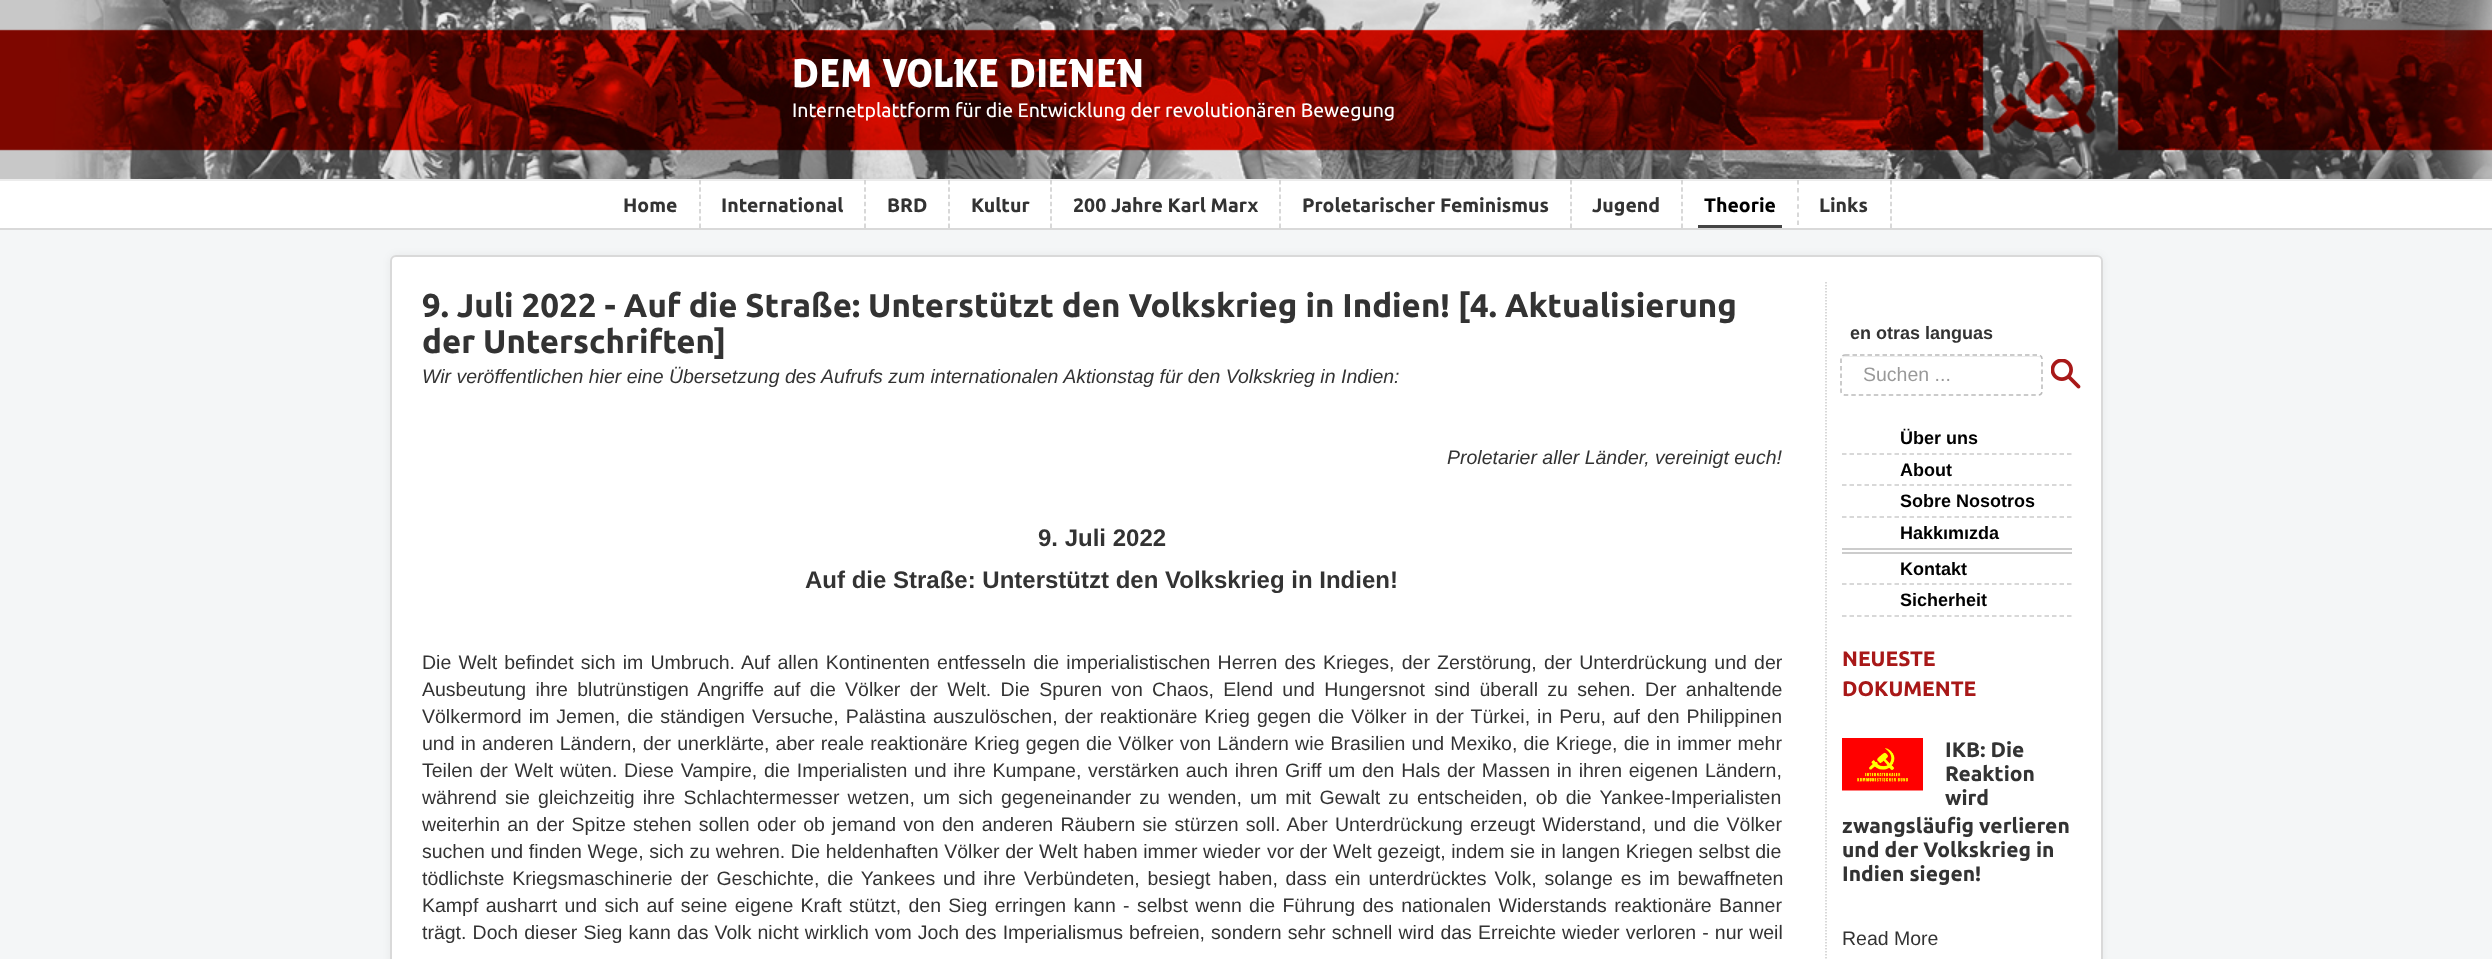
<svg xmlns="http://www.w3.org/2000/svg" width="2492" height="959">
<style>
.a{font:bold 39px 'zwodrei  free';fill:#fff}
.b{font:19.5px Ubuntu;fill:#fff}
.c{font:bold 19.5px Ubuntu;fill:#333}
.d{font:bold 19.5px Ubuntu;fill:#000}
.e{font:bold 33px Ubuntu;fill:#333}
.f{font:italic 19.5px Liberation Sans;fill:#333}
.g{font:bold 24px Liberation Sans;fill:#333}
.h{font:19.5px Liberation Sans;fill:#333}
.i{font:bold 18px Liberation Sans;fill:#333}
.j{font:19.5px Liberation Sans;fill:#999}
.k{font:bold 18px Liberation Sans;fill:#000}
.l{font:bold 21px Ubuntu;fill:#a81818}
.m{font:bold 21px Ubuntu;fill:#333}
</style>
<rect width="100%" height="100%" fill="#f4f6f7"/>
<rect fill="#0000000d" filter="blur(4.5px)" x="390" y="255" width="1713" height="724" rx="6"/>
<rect fill="#fff" x="390" y="255" width="1713" height="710" rx="6"/>
<rect fill="none" stroke="#00000026" stroke-width="2" x="391" y="256" width="1711" height="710" rx="5"/>
<image href="1.png" x="0" y="0" width="2492" height="179"/>
<path fill="#fff" d="M0 181h2492v47H0z"/>
<path fill="#ececec" d="M0 179h2492v2H0z"/>
<path fill="#d9d9d9" d="M0 228h2492v2H0z"/>
<path fill="none" stroke="#ccc" stroke-width="1.5" stroke-dasharray="4.5 2.75" d="M700 180v48"/>
<path fill="none" stroke="#ccc" stroke-width="1.5" stroke-dasharray="4.5 2.75" d="M865 180v48"/>
<path fill="none" stroke="#ccc" stroke-width="1.5" stroke-dasharray="4.5 2.75" d="M949 180v48"/>
<path fill="none" stroke="#ccc" stroke-width="1.5" stroke-dasharray="4.5 2.75" d="M1051 180v48"/>
<path fill="none" stroke="#ccc" stroke-width="1.5" stroke-dasharray="4.5 2.75" d="M1280 180v48"/>
<path fill="none" stroke="#ccc" stroke-width="1.5" stroke-dasharray="4.5 2.75" d="M1571 180v48"/>
<path fill="none" stroke="#ccc" stroke-width="1.5" stroke-dasharray="4.5 2.75" d="M1682 180v48"/>
<path fill="none" stroke="#ccc" stroke-width="1.5" stroke-dasharray="4.5 3.6" d="M1798 180v45"/>
<path fill="#444" d="M1698 225h84v3H1698z"/>
<path fill="none" stroke="#ccc" stroke-width="1.5" stroke-dasharray="4.5 2.75" d="M1891 180v48"/>
<path fill="none" stroke="#ccc" stroke-width="1.5" stroke-dasharray="1.5 1.5" d="M1826 282v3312"/>
<path fill="#ececec" d="M1845 357h193c2 0 4 1 4 3c0-2-1-4-3-4h-194c-2 0-3 2-3 4c0-2 1-3 3-3z"/>
<path fill="none" stroke="#bbb" stroke-width="1.5" stroke-dasharray="4.5 3" d="M1845 355h193.5c2 0 3.5 1.5 3.5 3.5v33c0 2-1.5 3.5-3.5 3.5h-193.5c-2 0-4-1.5-4-3.5v-33c0-2 2-3.5 4-3.5z"/>
<image href="2.png" x="2051" y="359" width="30" height="30"/>
<path fill="none" stroke="#ccc" stroke-width="1.5" stroke-dasharray="4.5 3" d="M1842 454h229.5"/>
<path fill="none" stroke="#ccc" stroke-width="1.5" stroke-dasharray="4.5 3" d="M1842 485h229.5"/>
<path fill="none" stroke="#ccc" stroke-width="1.5" stroke-dasharray="4.5 3" d="M1842 517h229.5"/>
<path fill="#ccc" d="M1842 548h230v2H1842z"/>
<path fill="#ccc" d="M1842 552h230v2H1842z"/>
<path fill="none" stroke="#ccc" stroke-width="1.5" stroke-dasharray="4.5 3" d="M1842 584h229.5"/>
<path fill="none" stroke="#ccc" stroke-width="1.5" stroke-dasharray="4.5 3" d="M1842 616h229.5"/>
<image href="3.png" x="1842" y="738" width="81" height="53"/>
<text class="a" x="792" y="87">DEM VOLKE DIENEN</text>
<text class="b" x="792" y="117">Internetplattform für die Entwicklung der revolutionären Bewegung</text>
<text class="c" x="623" y="212">Home</text>
<text class="c" x="721" y="212">International</text>
<text class="c" x="887" y="212">BRD</text>
<text class="c" x="971" y="212">Kultur</text>
<text class="c" x="1073" y="212">200 Jahre Karl Marx</text>
<text class="c" x="1302" y="212">Proletarischer Feminismus</text>
<text class="c" x="1592" y="212">Jugend</text>
<text class="d" x="1704" y="212">Theorie</text>
<text class="c" x="1819" y="212">Links</text>
<text class="e" x="422" y="317">9. Juli 2022 - Auf die Straße: Unterstützt den Volkskrieg in Indien! [4. Aktualisierung</text>
<text class="e" x="422" y="353">der Unterschriften]</text>
<text class="f" x="422" y="383">Wir veröffentlichen hier eine Übersetzung des Aufrufs zum internationalen Aktionstag für den Volkskrieg in Indien:</text>
<text class="f" x="1447" y="464">Proletarier aller Länder, vereinigt euch!</text>
<text class="g" x="1038" y="546">9. Juli 2022</text>
<text class="g" x="805" y="588">Auf die Straße: Unterstützt den Volkskrieg in Indien!</text>
<text class="h" x="422" y="669" word-spacing="1.75">Die Welt befindet sich im Umbruch. Auf allen Kontinenten entfesseln die imperialistischen Herren des Krieges, der Zerstörung, der Unterdrückung und der</text>
<text class="h" x="422" y="696" word-spacing="3.9">Ausbeutung ihre blutrünstigen Angriffe auf die Völker der Welt. Die Spuren von Chaos, Elend und Hungersnot sind überall zu sehen. Der anhaltende</text>
<text class="h" x="422" y="723" word-spacing="1.6">Völkermord im Jemen, die ständigen Versuche, Palästina auszulöschen, der reaktionäre Krieg gegen die Völker in der Türkei, in Peru, auf den Philippinen</text>
<text class="h" x="422" y="750" word-spacing="0.75">und in anderen Ländern, der unerklärte, aber reale reaktionäre Krieg gegen die Völker von Ländern wie Brasilien und Mexiko, die Kriege, die in immer mehr</text>
<text class="h" x="422" y="777" word-spacing="1.3">Teilen der Welt wüten. Diese Vampire, die Imperialisten und ihre Kumpane, verstärken auch ihren Griff um den Hals der Massen in ihren eigenen Ländern,</text>
<text class="h" x="422" y="804" word-spacing="2.75">während sie gleichzeitig ihre Schlachtermesser wetzen, um sich gegeneinander zu wenden, um mit Gewalt zu entscheiden, ob die Yankee-Imperialisten</text>
<text class="h" x="422" y="831" word-spacing="1.8">weiterhin an der Spitze stehen sollen oder ob jemand von den anderen Räubern sie stürzen soll. Aber Unterdrückung erzeugt Widerstand, und die Völker</text>
<text class="h" x="422" y="858" word-spacing="0.25">suchen und finden Wege, sich zu wehren. Die heldenhaften Völker der Welt haben immer wieder</text>
<text class="h" x="1267" y="858">vor d</text>
<text class="h" x="1310" y="858">er</text>
<text class="h" x="1333" y="858" word-spacing="0.25">Welt gezeigt, indem sie in langen Kriegen selbst die</text>
<text class="h" x="422" y="885" word-spacing="2.4">tödlichste Kriegsmaschinerie der Geschichte, die Yankees und ihre Verbündeten, besiegt haben, dass ein unterdrücktes Volk, solange es im bewaffneten</text>
<text class="h" x="422" y="912" word-spacing="1.9">Kampf ausharrt und sich auf seine eigene Kraft stützt, den Sieg erringen kann - selbst wenn die Führung des nationalen Widerstands reaktionäre Banner</text>
<text class="h" x="422" y="939" word-spacing="0.7">trägt. Doch dieser Sieg kann das Volk nicht wirklich vom Joch des Imperialismus befreien, sondern sehr schnell wird das Erreichte wieder verloren - nur weil</text>
<text class="i" x="1850" y="339">en otras languas</text>
<text class="j" x="1863" y="381">Suchen ...</text>
<text class="k" x="1900" y="444">Über uns</text>
<text class="k" x="1900" y="476">About</text>
<text class="k" x="1900" y="507">Sobre Nosotros</text>
<text class="k" x="1900" y="539">Hakkımızda</text>
<text class="k" x="1900" y="575">Kontakt</text>
<text class="k" x="1900" y="606">Sicherheit</text>
<text class="l" x="1842" y="666">NEUESTE</text>
<text class="l" x="1842" y="696">DOKUMENTE</text>
<text class="m" x="1945" y="757">IKB: Die</text>
<text class="m" x="1945" y="781">Reaktion</text>
<text class="m" x="1945" y="805">wird</text>
<text class="m" x="1842" y="833">zwangsläufig verlieren</text>
<text class="m" x="1842" y="857">und der Volkskrieg in</text>
<text class="m" x="1842" y="881">Indien siegen!</text>
<text class="h" x="1842" y="945">Read More</text>
</svg>
